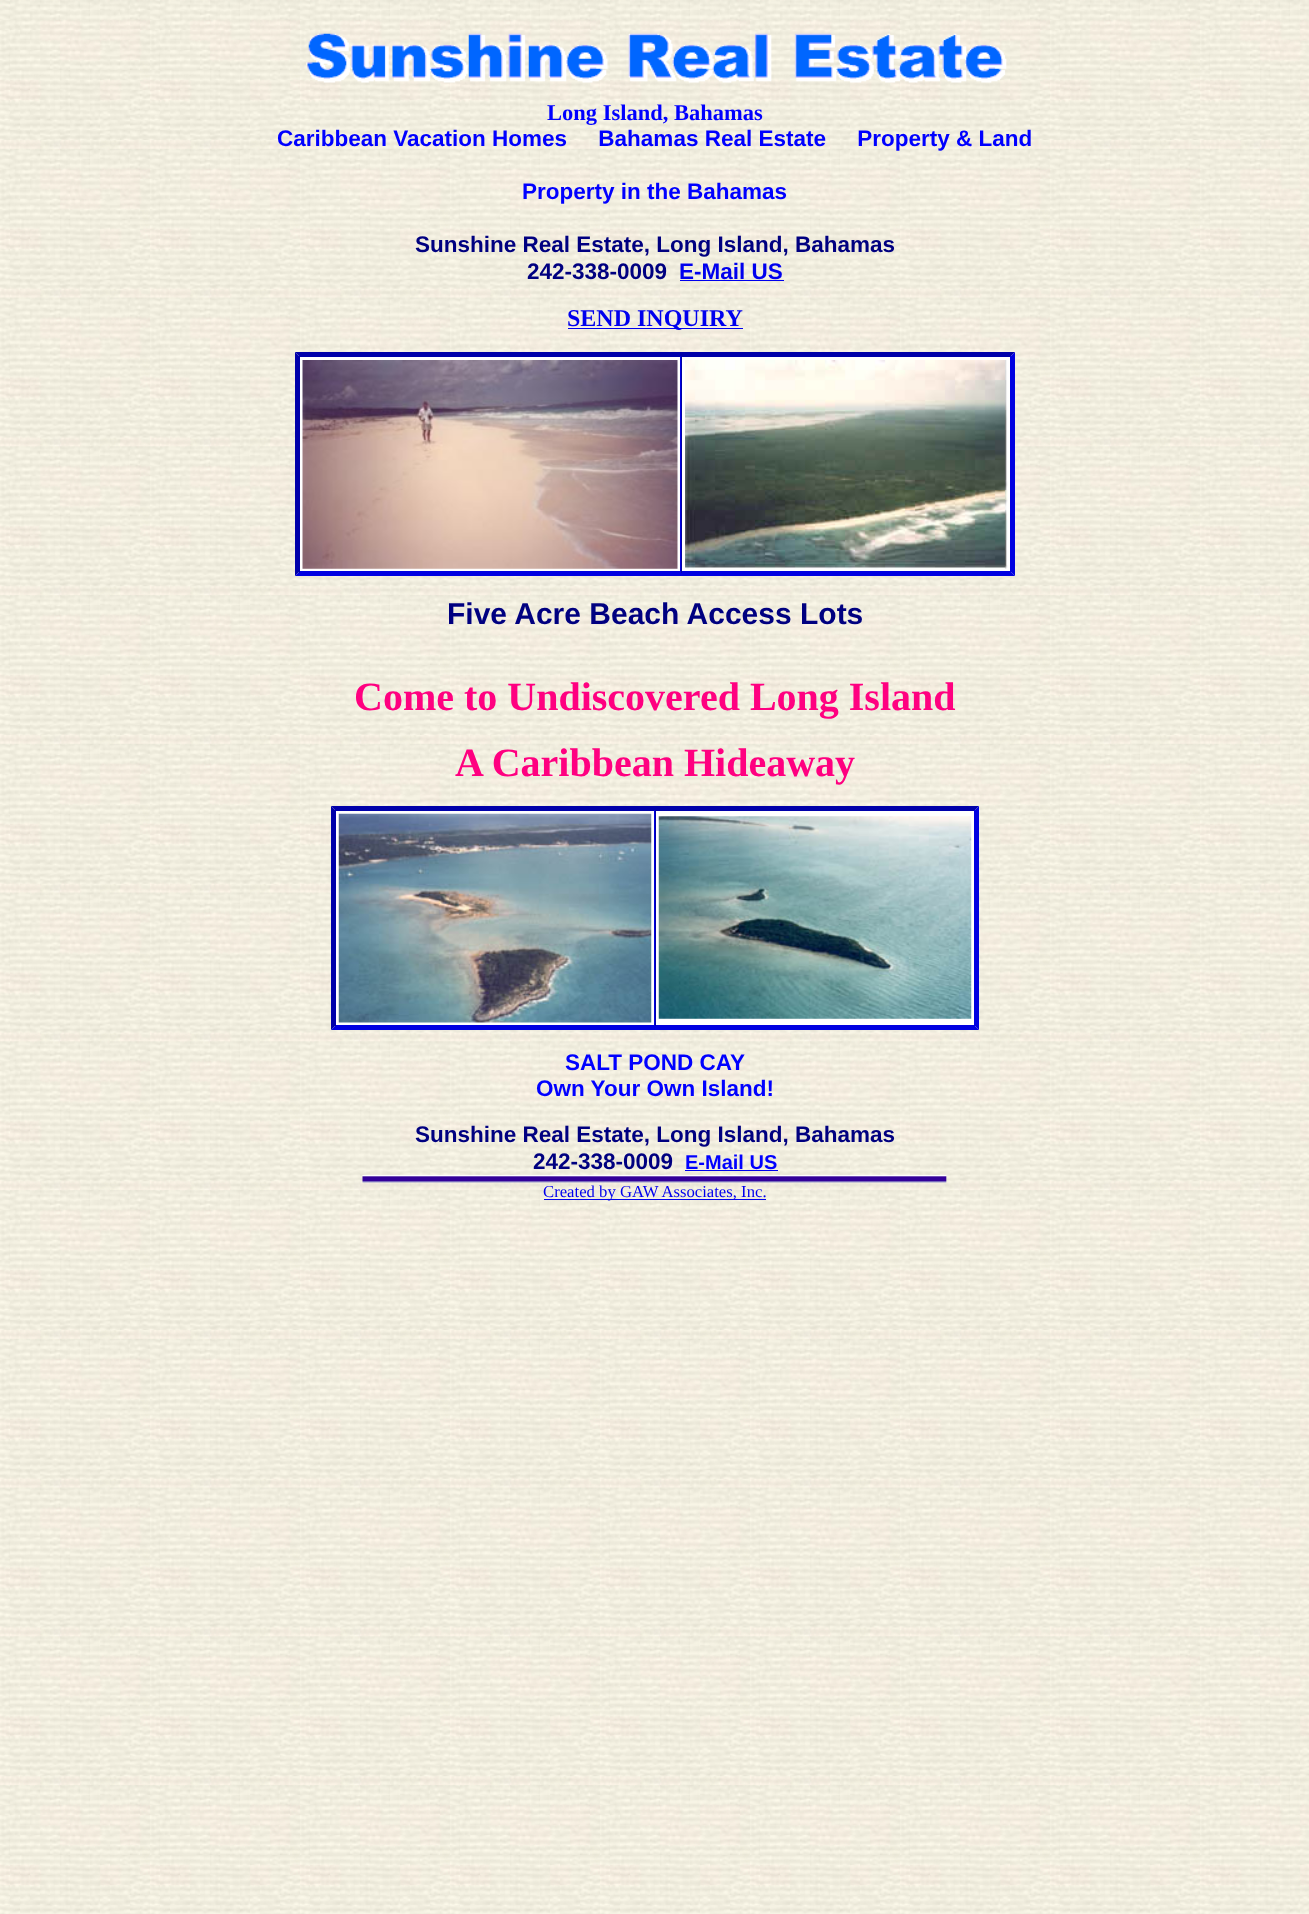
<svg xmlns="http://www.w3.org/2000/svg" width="1309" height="1914">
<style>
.a{font:bold 22.5px Liberation Serif;fill:#00f}
.b{font:bold 22.5px Liberation Sans;fill:#00f}
.c{font:bold 22.5px Liberation Sans;fill:#000080}
.d{font:bold 22.5px Liberation Sans;fill:#00e}
.e{font:bold 24px Liberation Serif;fill:#00e}
.f{font:bold 30px Liberation Sans;fill:#000080}
.g{font:bold 40px Liberation Serif;fill:#ff0080}
.h{font:bold 20px Liberation Sans;fill:#00f}
.i{font:16.7px Liberation Serif;fill:#00e}
</style>
<rect width="100%" height="100%" fill="#fff"/>
<image href="1.png" x="0" y="0" width="1309" height="1914"/>
<image href="2.png" x="306" y="33" width="701" height="50"/>
<path fill="#00e" d="M680 280h104v1H680z"/>
<path fill="#00e" d="M568 328h175v1H568z"/>
<path fill="#fff" d="M295 353h720v223H295z"/>
<path fill="#00a" d="M295 352h720l-4 4h-712z"/>
<path fill="#0000e1" d="M1015 352v224l-4-4v-216z"/>
<path fill="#0000e1" d="M1015 576h-720l4-4h712z"/>
<path fill="#00a" d="M295 576v-224l4 4v216z"/>
<path fill="#00a" d="M299 356h712v1H299z"/>
<path fill="#0000e1" d="M680 356h1v217H680z"/>
<path fill="#0000e1" d="M299 571h382v1H299z"/>
<path fill="#00a" d="M299 356h1v217H299z"/>
<image href="3.png" x="302" y="360" width="376" height="209"/>
<path fill="#0000e1" d="M1010 356h1v217H1010z"/>
<path fill="#0000e1" d="M681 571h330v1H681z"/>
<path fill="#00a" d="M681 356h1v217H681z"/>
<image href="4.png" x="685" y="360" width="323" height="209"/>
<path fill="#fff" d="M331 806h648v224H331z"/>
<path fill="#00a" d="M331 806h648l-4 4h-640z"/>
<path fill="#0000e1" d="M979 806v224l-4-4v-216z"/>
<path fill="#0000e1" d="M979 1030h-648l4-4h640z"/>
<path fill="#00a" d="M331 1030v-224l4 4v216z"/>
<path fill="#00a" d="M335 810h640v1H335z"/>
<path fill="#0000e1" d="M654 810h1v216H654z"/>
<path fill="#0000e1" d="M335 1025h320v1H335z"/>
<path fill="#00a" d="M335 810h1v216H335z"/>
<image href="5.png" x="338" y="813" width="314" height="210"/>
<path fill="#0000e1" d="M974 810h1v216H974z"/>
<path fill="#0000e1" d="M655 1025h320v1H655z"/>
<path fill="#00a" d="M655 810h1v216H655z"/>
<image href="6.png" x="658" y="816" width="314" height="203"/>
<path fill="#00e" d="M685 1170h93v1H685z"/>
<image href="7.png" x="362" y="1175" width="585" height="8"/>
<path fill="#00e" d="M544 1199h222v1H544z"/>
<text class="a" x="547" y="120">Long Island, Bahamas</text>
<text class="b" xml:space="preserve" x="277" y="146">Caribbean Vacation Homes     Bahamas Real Estate     Property &amp; Land</text>
<text class="b" x="522" y="199">Property in the Bahamas</text>
<text class="c" x="415" y="252">Sunshine Real Estate, Long Island, Bahamas</text>
<text class="c" x="527" y="279">242-338-0009</text>
<text class="d" x="679" y="279">E-Mail US</text>
<text class="e" x="567" y="326">SEND INQUIRY</text>
<text class="f" x="447" y="624">Five Acre Beach Access Lots</text>
<text class="g" x="354" y="710">Come to Undiscovered Long Island</text>
<text class="g" x="455" y="776">A Caribbean Hideaway</text>
<text class="b" x="565" y="1070">SALT POND CAY</text>
<text class="b" x="536" y="1096">Own Your Own Island!</text>
<text class="c" x="415" y="1142">Sunshine Real Estate, Long Island, Bahamas</text>
<text class="c" x="533" y="1169">242-338-0009</text>
<text class="h" x="685" y="1169">E-Mail US</text>
<text class="i" x="543" y="1197">Created by GAW Associates, Inc.</text>
</svg>
